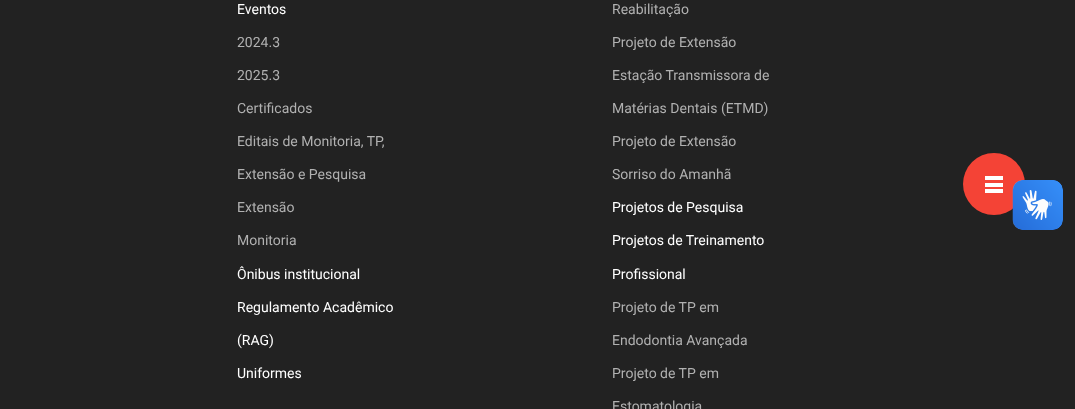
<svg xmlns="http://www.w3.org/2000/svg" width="1075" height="409">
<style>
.a{font:14px Roboto;fill:#fff}
.b{font:14px Roboto;fill:#b1b1b1}
</style>
<rect width="100%" height="100%" fill="#222"/>
<circle fill="#f44336" cx="994" cy="184" r="31"/>
<path fill="#fff" d="M985 183h18v4H985z"/>
<path fill="#fff" d="M985 176h18v4H985z"/>
<path fill="#fff" d="M985 189h18v4H985z"/>
<image href="1.png" x="1012" y="180" width="51" height="50"/>
<image href="2.png" x="1013" y="180" width="50" height="50"/>
<text class="a" x="237" y="14">Eventos</text>
<text class="b" x="237" y="47">2024.3</text>
<text class="b" x="237" y="80">2025.3</text>
<text class="b" x="237" y="113">Certificados</text>
<text class="b" x="237" y="146">Editais de Monitoria, TP,</text>
<text class="b" x="237" y="179">Extensão e Pesquisa</text>
<text class="b" x="237" y="212">Extensão</text>
<text class="b" x="237" y="245">Monitoria</text>
<text class="a" x="237" y="279">Ônibus institucional</text>
<text class="a" x="237" y="312">Regulamento Acadêmico</text>
<text class="a" x="237" y="345">(RAG)</text>
<text class="a" x="237" y="378">Uniformes</text>
<text class="b" x="612" y="14">Reabilitação</text>
<text class="b" x="612" y="47">Projeto de Extensão</text>
<text class="b" x="612" y="80">Estação Transmissora de</text>
<text class="b" x="612" y="113">Matérias Dentais (ETMD)</text>
<text class="b" x="612" y="146">Projeto de Extensão</text>
<text class="b" x="612" y="179">Sorriso do Amanhã</text>
<text class="a" x="612" y="212">Projetos de Pesquisa</text>
<text class="a" x="612" y="245">Projetos de Treinamento</text>
<text class="a" x="612" y="279">Profissional</text>
<text class="b" x="612" y="312">Projeto de TP em</text>
<text class="b" x="612" y="345">Endodontia Avançada</text>
<text class="b" x="612" y="378">Projeto de TP em</text>
<text class="b" x="612" y="411">Estomatologia</text>
</svg>
